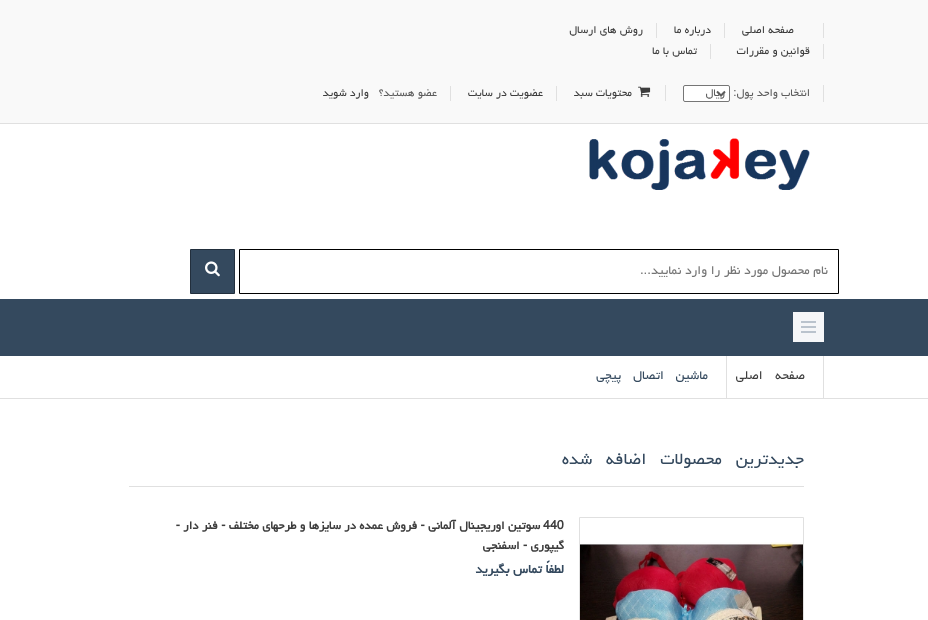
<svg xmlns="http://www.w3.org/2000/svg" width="928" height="620">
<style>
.a{font:13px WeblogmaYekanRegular;direction:rtl;fill:#3d3d3d}
.b{font:13px WeblogmaYekanRegular;direction:rtl;fill:#5d5d5d}
.c{font:15px WeblogmaYekanRegular;direction:rtl;fill:#757575}
.d{font:15px WeblogmaYekanRegular;letter-spacing:-1px;direction:rtl;fill:#3d3d3d}
.e{font:15px WeblogmaYekanRegular;letter-spacing:-1px;direction:rtl;fill:#34495e}
.f{font:20px WeblogmaYekanRegular;letter-spacing:-1px;direction:rtl;fill:#34495e}
.g{font:bold 14px WeblogmaYekanRegular;fill:#3d3d3d}
.h{font:bold 14px WeblogmaYekanRegular;direction:rtl;fill:#3d3d3d}
.i{font:bold 15px WeblogmaYekanRegular;direction:rtl;fill:#34495e}
</style>
<rect width="100%" height="100%" fill="#fff"/>
<path fill="#f9f9f9" d="M0 0h928v123H0z"/>
<path fill="#e0e0e0" d="M0 123h928v1H0z"/>
<path fill="#e0e0e0" d="M823 23h1v15H823z"/>
<path fill="#e0e0e0" d="M724 23h1v15H724z"/>
<path fill="#e0e0e0" d="M656 23h1v15H656z"/>
<path fill="#e0e0e0" d="M823 44h1v15H823z"/>
<path fill="#e0e0e0" d="M710 44h1v15H710z"/>
<path fill="#e0e0e0" d="M823 85h1v17H823z"/>
<rect fill="#fff" stroke="#767676" x="683.5" y="85.5" width="46" height="16" rx="1.5"/>
<path fill="none" stroke="#5d5d5d" stroke-width="2" d="M717 91.5l4 4l4-4"/>
<path fill="#e0e0e0" d="M665 85h1v16H665z"/>
<image href="1.png" x="638" y="86" width="13" height="11"/>
<path fill="#e0e0e0" d="M556 86h1v15H556z"/>
<path fill="#e0e0e0" d="M450 86h1v15H450z"/>
<image href="2.png" x="589" y="138" width="221" height="52"/>
<path fill="none" stroke="#000" d="M239.5 249.5h599v44H239.5z"/>
<path fill="#34495e" stroke="#222f3d" d="M190.5 249.5h44v44H190.5z"/>
<image href="3.png" x="205" y="261" width="15" height="16"/>
<path fill="#34495e" d="M0 299h928v57H0z"/>
<path fill="#f5f6f8" d="M793 312h31v30H793z"/>
<path fill="#bac3cd" d="M801 321h15v2H801z"/>
<path fill="#bac3cd" d="M801 326h15v2H801z"/>
<path fill="#bac3cd" d="M801 331h15v2H801z"/>
<path fill="#e0e0e0" d="M0 398h928v1H0z"/>
<path fill="#e0e0e0" d="M823 356h1v42H823z"/>
<path fill="#e0e0e0" d="M726 356h1v42H726z"/>
<path fill="#e0e0e0" d="M129 486h675v1H129z"/>
<path fill="none" stroke="#e0e0e0" d="M579.5 517.5h224v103H579.5z"/>
<image href="4.png" x="580" y="542" width="223" height="78"/>
<text class="a" x="794" y="33">صفحه اصلی</text>
<text class="a" x="711" y="33">درباره ما</text>
<text class="a" x="643" y="33">روش های ارسال</text>
<text class="a" x="810" y="54">قوانین و مقررات</text>
<text class="a" x="697" y="54">تماس با ما</text>
<text class="b" x="810" y="96">انتخاب واحد پول:</text>
<text class="b" x="725" y="96">ریال</text>
<text class="a" x="632" y="96">محتویات سبد</text>
<text class="a" x="543" y="96">عضویت در سایت</text>
<text class="b" x="437" y="96">عضو هستید؟</text>
<text class="a" x="369" y="96">وارد شوید</text>
<text class="c" x="828" y="274">نام محصول مورد نظر را وارد نمایید...</text>
<text class="d" x="805" y="379" word-spacing="9">صفحه اصلی</text>
<text class="e" x="708" y="379" word-spacing="8">ماشين اتصال پيچي</text>
<text class="f" x="804" y="464" word-spacing="9">جدیدترین محصولات اضافه شده</text>
<text class="g" x="543" y="529">440</text>
<text class="h" x="540" y="529">سوتین اوریجینال آلمانی - فروش عمده در سایزها و طرحهای مختلف - فنر دار -</text>
<text class="h" x="564" y="549">گیپوری - اسفنجی</text>
<text class="i" x="564" y="573">لطفاً تماس بگیرید</text>
</svg>
